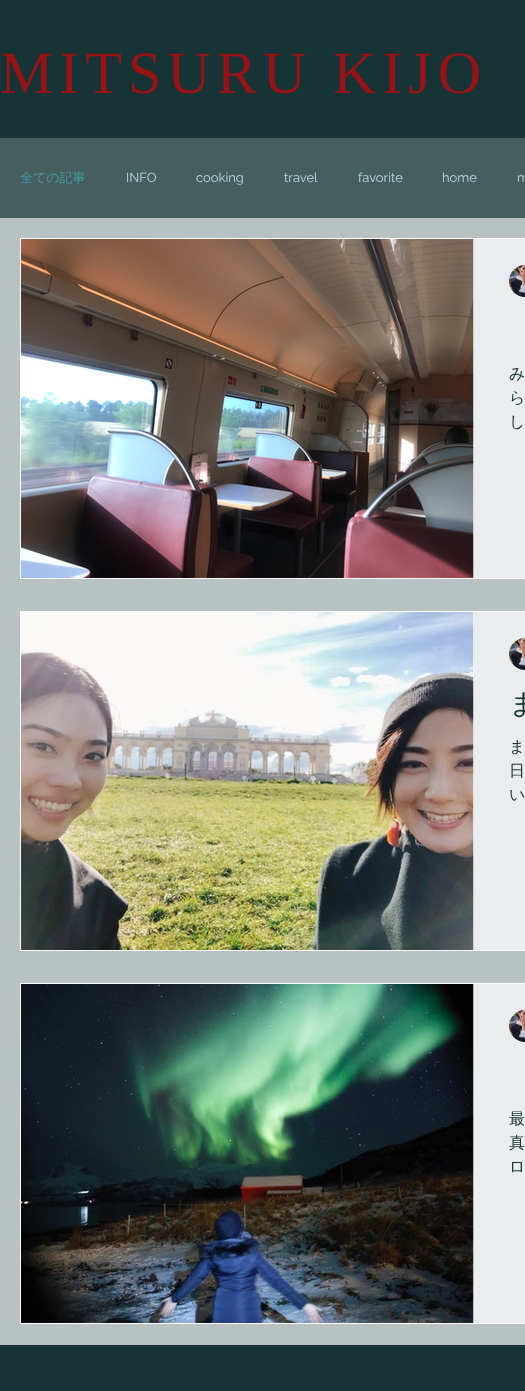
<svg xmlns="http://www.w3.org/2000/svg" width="525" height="1391">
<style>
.a{font:60px Liberation Serif;letter-spacing:6px;fill:#971316}
.b{font:500 13px WenQuanYi Zen Hei;fill:#439aa0}
.c{font:13px Raleway;fill:#b4dcdf}
.d{font:500 16px WenQuanYi Zen Hei;fill:#163335}
.e{font:500 28px WenQuanYi Zen Hei;fill:#163335}
</style>
<rect width="100%" height="100%" fill="#163335"/>
<path fill="#b9c2c2" d="M0 218h525v1127H0z"/>
<path fill="#475e5f" d="M0 138h525v80H0z"/>
<path fill="none" stroke="#fff" d="M20.5 238.5h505v340H20.5z"/>
<image href="1.png" x="21" y="239" width="453" height="339"/>
<path fill="#ffffffb3" d="M473 239h52v339H473z"/>
<image href="2.png" x="509" y="265" width="16" height="32"/>
<path fill="none" stroke="#fff" d="M20.5 611.5h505v339H20.5z"/>
<image href="3.png" x="21" y="612" width="453" height="338"/>
<path fill="#ffffffb3" d="M473 612h52v338H473z"/>
<image href="4.png" x="509" y="638" width="16" height="32"/>
<path fill="none" stroke="#fff" d="M20.5 983.5h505v340H20.5z"/>
<image href="5.png" x="21" y="984" width="453" height="339"/>
<path fill="#ffffffb3" d="M473 984h52v339H473z"/>
<image href="2.png" x="509" y="1010" width="16" height="32"/>
<text class="a" x="0" y="93">MITSURU KIJO</text>
<text class="b" x="20" y="182">全ての記事</text>
<text class="c" x="126" y="182">INFO</text>
<text class="c" x="196" y="182">cooking</text>
<text class="c" x="284" y="182">travel</text>
<text class="c" x="358" y="182">favorite</text>
<text class="c" x="442" y="182">home</text>
<text class="c" x="517" y="182">m</text>
<text class="d" x="509" y="379" word-spacing="-1">み</text>
<text class="d" x="509" y="403">ら</text>
<text class="d" x="509" y="427">し</text>
<text class="e" x="509" y="713">ま</text>
<text class="d" x="509" y="752" word-spacing="-1">ま</text>
<text class="d" x="509" y="776">日</text>
<text class="d" x="509" y="800">い</text>
<text class="d" x="509" y="1124">最</text>
<text class="d" x="509" y="1148">真</text>
<text class="d" x="509" y="1172" word-spacing="-1">ロ</text>
</svg>
